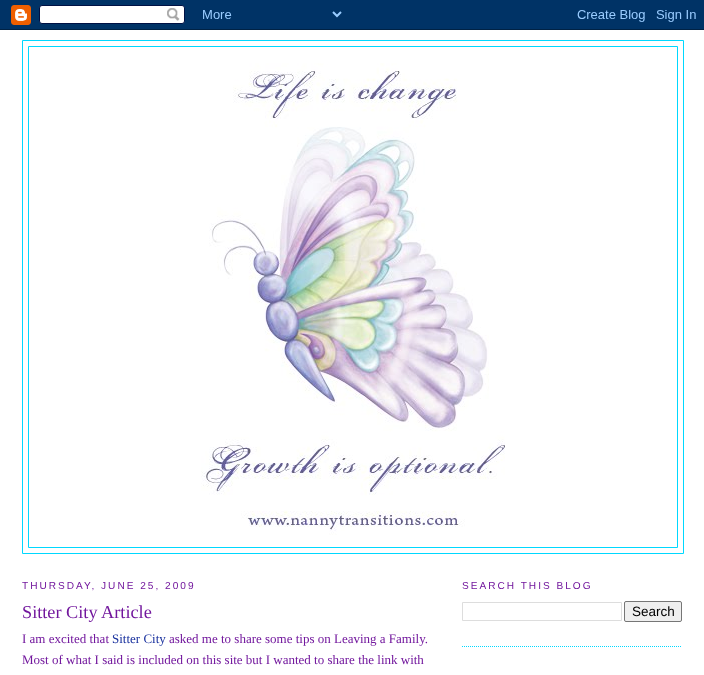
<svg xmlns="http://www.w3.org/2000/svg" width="704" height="675">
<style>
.a{font:10.1px Liberation Sans;letter-spacing:2px;fill:#72179d}
.b{font:18.25px Liberation Serif;fill:#72179d}
.c{font:13px Liberation Serif;fill:#72179d}
.d{font:13px Liberation Serif;fill:#172f9d}
.e{font:13.5px Liberation Sans;fill:#000}
</style>
<rect width="100%" height="100%" fill="#fff"/>
<image href="1.png" x="0" y="0" width="704" height="30"/>
<path fill="none" stroke="#00d8ff" d="M22.5 40.5h661v513H22.5z"/>
<path fill="none" stroke="#00d8ff" d="M28.5 46.5h649v501H28.5z"/>
<image href="2.png" x="201" y="63" width="304" height="472"/>
<path fill="none" stroke="#00d8ff" stroke-dasharray="1 1" d="M462 646.5h220"/>
<path fill="none" stroke="#ddd" d="M462.5 602.5h159v18H462.5z"/>
<rect fill="#efefef" stroke="#767676" x="624.5" y="601.5" width="57" height="20" rx="1.5"/>
<text class="a" x="22" y="589">THURSDAY, JUNE 25, 2009</text>
<text class="b" x="22" y="618">Sitter City Article</text>
<text class="c" x="22" y="643">I am excited that</text>
<text class="d" x="112" y="643">Sitter City</text>
<text class="c" x="169" y="643">asked me to share some tips on Leaving a Family.</text>
<text class="c" x="22" y="664">Most of what I said is included on this site but I wanted to share the link with</text>
<text class="a" x="462" y="589">SEARCH THIS BLOG</text>
<text class="e" x="632" y="616">Search</text>
</svg>
